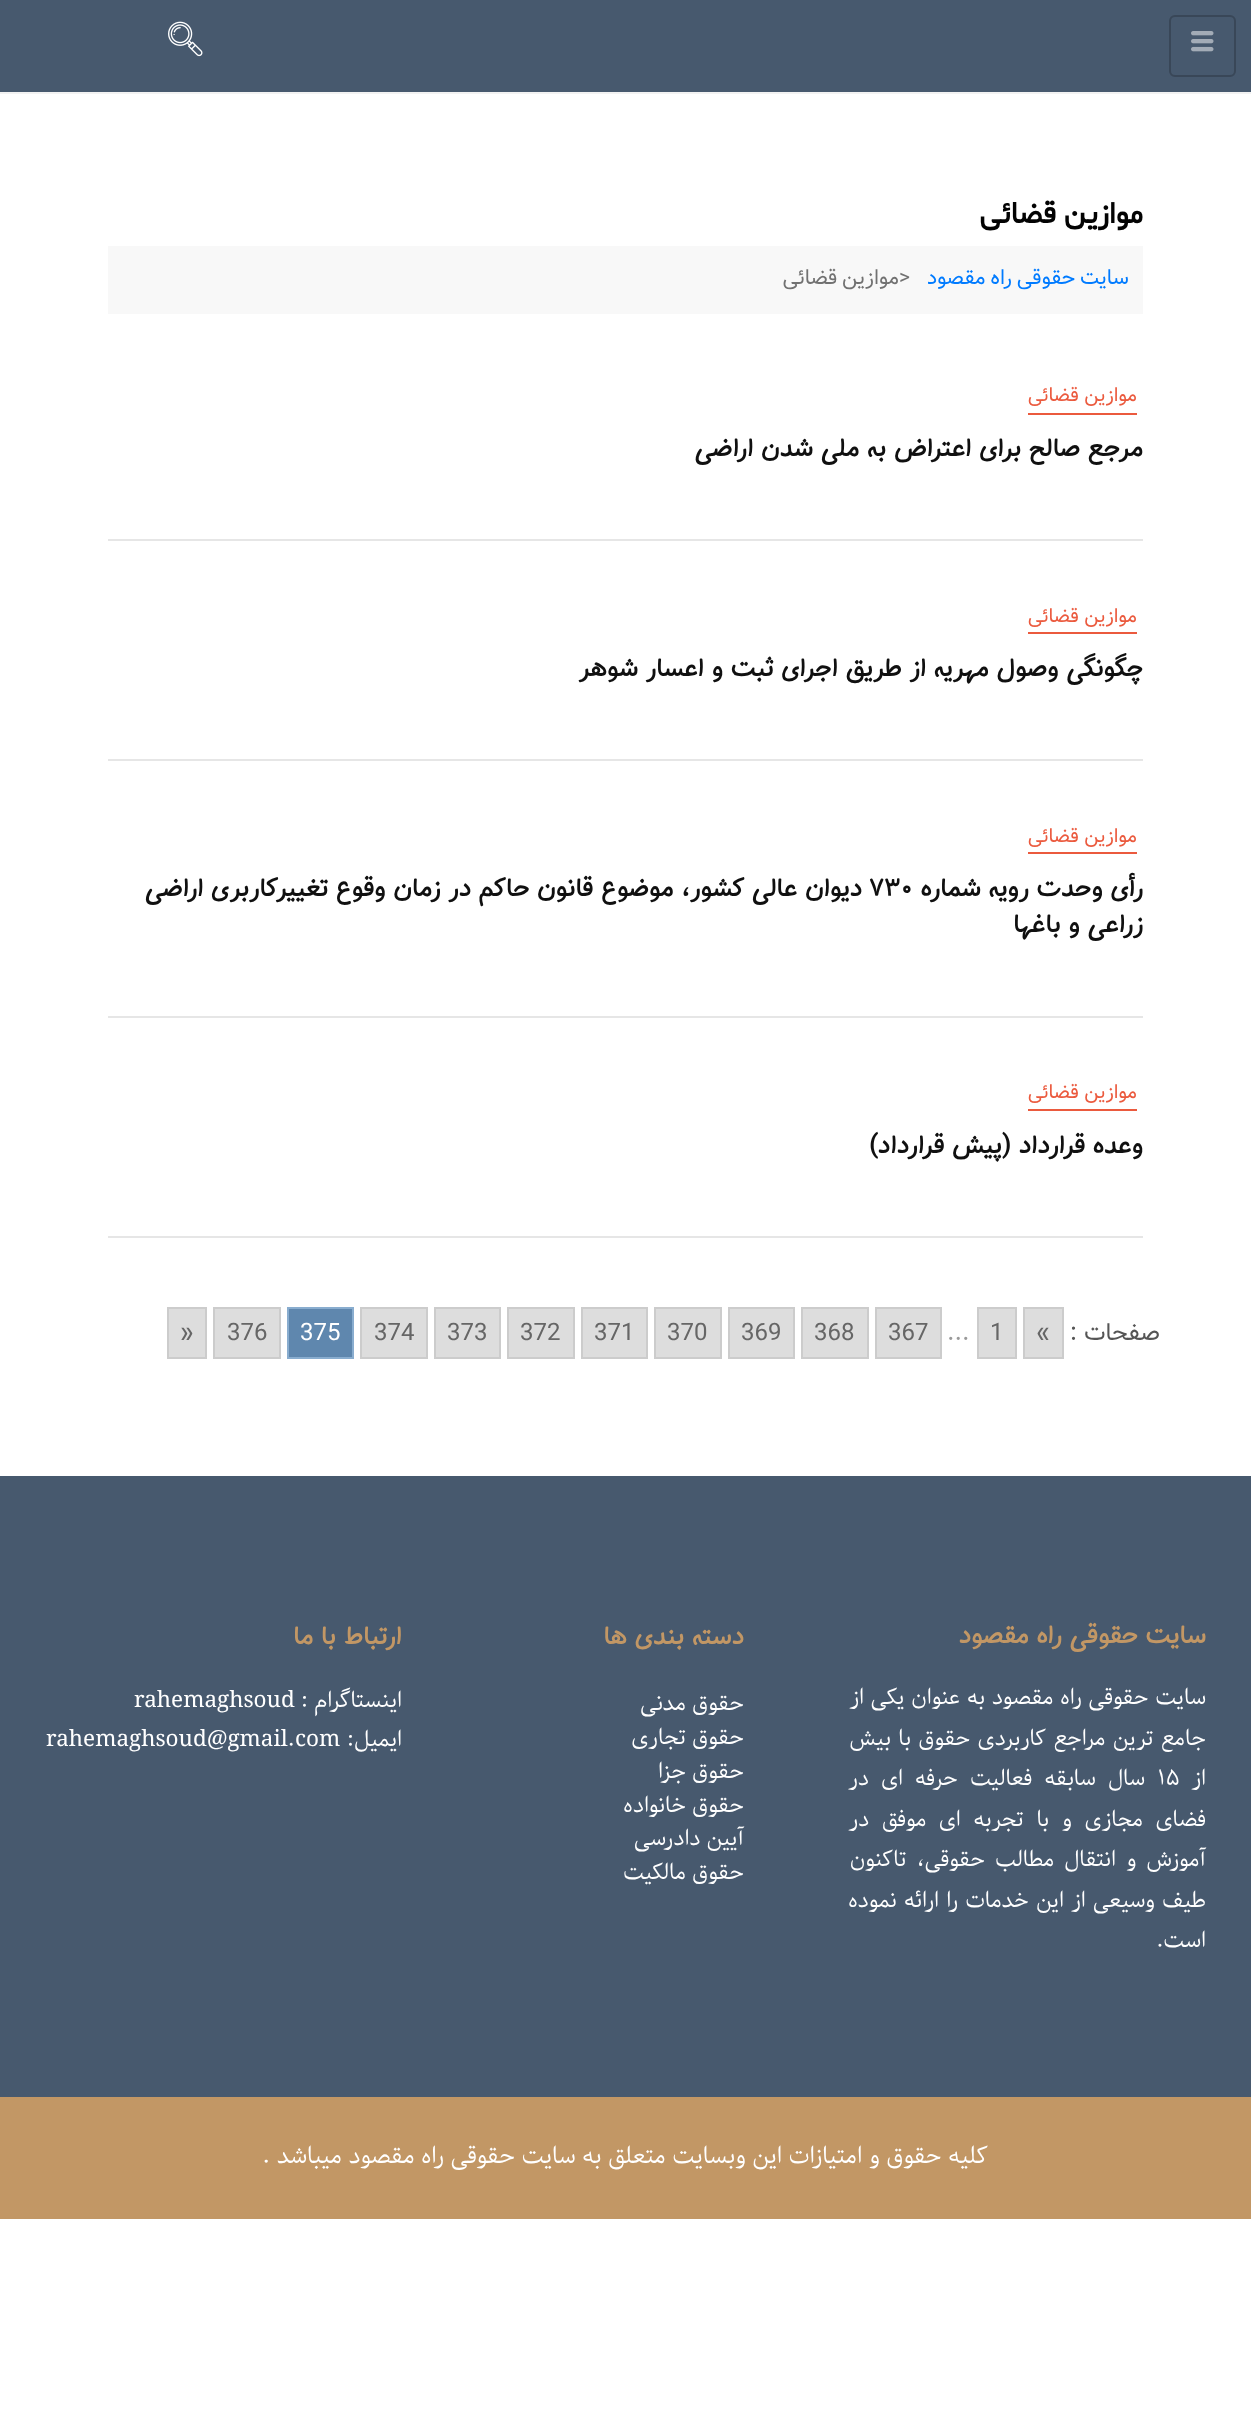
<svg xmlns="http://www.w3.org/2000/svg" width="1251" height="2434">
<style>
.a{font:bold 30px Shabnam;direction:rtl;fill:#030303}
.b{font:21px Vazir;letter-spacing:0.6px;direction:rtl;fill:#007bff}
.c{font:21px Vazir;letter-spacing:0.6px;fill:#717171}
.d{font:21px Vazir;letter-spacing:0.6px;direction:rtl;fill:#717171}
.e{font:19.5px Vazir;direction:rtl;fill:#eb5a3e}
.f{font:bold 25.5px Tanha;direction:rtl;fill:#101010}
.g{font:bold 25.5px Tanha;fill:#101010}
.h{font:24px Vazir;direction:rtl;fill:#555}
.i{font:24px Vazir;fill:#666}
.j{font:24px Vazir;fill:#999}
.k{font:24px Vazir;fill:#fff}
.l{font:bold 25.5px Tanha;direction:rtl;fill:#c29765}
.m{font:22.5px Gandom;direction:rtl;fill:#fff}
.n{font:22.5px Gandom;fill:#fff}
.o{font:24px Gandom;direction:rtl;fill:#fff}
</style>
<rect width="100%" height="100%" fill="#fff"/>
<path fill="#47596e" d="M0 0h1251v92H0z"/>
<rect fill="none" stroke="#394758" stroke-width="2" x="1170" y="16" width="65" height="60" rx="5"/>
<image href="1.png" x="1191" y="31" width="23" height="21"/>
<image href="2.png" x="168" y="21" width="35" height="36"/>
<path fill="#f2f2f2" d="M0 92h1251v2H0z"/>
<path fill="#f8f8f8" d="M108 246h1035v68H108z"/>
<path fill="#e6e6e6" d="M108 539h1035v2H108z"/>
<path fill="#eb5a3e" d="M1028 413h109v2H1028z"/>
<path fill="#e6e6e6" d="M108 759h1035v2H108z"/>
<path fill="#eb5a3e" d="M1028 632h109v2H1028z"/>
<path fill="#e6e6e6" d="M108 1016h1035v2H108z"/>
<path fill="#eb5a3e" d="M1028 852h109v2H1028z"/>
<path fill="#e6e6e6" d="M108 1236h1035v2H108z"/>
<path fill="#eb5a3e" d="M1028 1109h109v2H1028z"/>
<path fill="#ddd" stroke="#ccc" stroke-width="2" d="M1024 1308h39v50H1024z"/>
<path fill="#ddd" stroke="#ccc" stroke-width="2" d="M978 1308h38v50H978z"/>
<path fill="#ddd" stroke="#ccc" stroke-width="2" d="M876 1308h65v50H876z"/>
<path fill="#ddd" stroke="#ccc" stroke-width="2" d="M802 1308h66v50H802z"/>
<path fill="#ddd" stroke="#ccc" stroke-width="2" d="M729 1308h65v50H729z"/>
<path fill="#ddd" stroke="#ccc" stroke-width="2" d="M655 1308h66v50H655z"/>
<path fill="#ddd" stroke="#ccc" stroke-width="2" d="M582 1308h65v50H582z"/>
<path fill="#ddd" stroke="#ccc" stroke-width="2" d="M508 1308h66v50H508z"/>
<path fill="#ddd" stroke="#ccc" stroke-width="2" d="M435 1308h65v50H435z"/>
<path fill="#ddd" stroke="#ccc" stroke-width="2" d="M361 1308h66v50H361z"/>
<path fill="#5f87ae" stroke="#89adcf" stroke-width="2" d="M288 1308h65v50H288z"/>
<path fill="#ddd" stroke="#ccc" stroke-width="2" d="M214 1308h66v50H214z"/>
<path fill="#ddd" stroke="#ccc" stroke-width="2" d="M168 1308h38v50H168z"/>
<path fill="#47596e" d="M0 1476h1251v621H0z"/>
<path fill="#c29765" d="M0 2097h1251v122H0z"/>
<text class="a" x="1143" y="223">موازین قضائی</text>
<text class="b" x="1129" y="284" word-spacing="-1">سایت حقوقی راه مقصود</text>
<text class="c" x="899" y="284">&gt;</text>
<text class="d" x="899" y="284" word-spacing="-1">موازین قضائی</text>
<text class="e" x="1137" y="401">موازین قضائی</text>
<text class="f" x="1143" y="456">مرجع صالح برای اعتراض به ملی شدن اراضی</text>
<text class="e" x="1137" y="622">موازین قضائی</text>
<text class="f" x="1143" y="676">چگونگی وصول مهریه از طریق اجرای ثبت و اعسار شوهر</text>
<text class="e" x="1137" y="842">موازین قضائی</text>
<text class="f" x="1143" y="896">رأی وحدت رویه شماره</text>
<text class="g" x="869" y="896">۷۳۰</text>
<text class="f" x="862" y="896">دیوان عالی کشور، موضوع قانون حاکم در زمان وقوع تغییرکاربری اراضی</text>
<text class="f" x="1143" y="932">زراعی و باغها</text>
<text class="e" x="1137" y="1098">موازین قضائی</text>
<text class="f" x="1143" y="1153">وعده قرارداد (پیش قرارداد)</text>
<text class="h" x="1160" y="1340">صفحات :</text>
<text class="i" x="1036" y="1340">«</text>
<text class="i" x="990" y="1340">1</text>
<text class="j" x="947" y="1340">...</text>
<text class="i" x="888" y="1340">367</text>
<text class="i" x="814" y="1340">368</text>
<text class="i" x="741" y="1340">369</text>
<text class="i" x="667" y="1340">370</text>
<text class="i" x="594" y="1340">371</text>
<text class="i" x="520" y="1340">372</text>
<text class="i" x="447" y="1340">373</text>
<text class="i" x="374" y="1340">374</text>
<text class="k" x="300" y="1340">375</text>
<text class="i" x="227" y="1340">376</text>
<text class="i" x="180" y="1340">»</text>
<text class="l" x="1206" y="1643">سایت حقوقی راه مقصود</text>
<text class="m" x="1206" y="1704" word-spacing="0.5">سایت حقوقی راه مقصود به عنوان یکی از</text>
<text class="m" x="1206" y="1745" word-spacing="1.25">جامع ترین مراجع کاربردی حقوق با بیش</text>
<text class="m" x="1206" y="1785">از</text>
<text class="n" x="1158" y="1785">۱۵</text>
<text class="m" x="1145" y="1785" word-spacing="6">سال سابقه فعالیت حرفه ای در</text>
<text class="m" x="1206" y="1826" word-spacing="6.5">فضای مجازی و با تجربه ای موفق در</text>
<text class="m" x="1206" y="1866" word-spacing="4">آموزش و انتقال مطالب حقوقی، تاکنون</text>
<text class="m" x="1206" y="1907" word-spacing="1">طیف وسیعی از این خدمات را ارائه نموده</text>
<text class="m" x="1206" y="1947">است.</text>
<text class="l" x="744" y="1644">دسته بندی ها</text>
<text class="m" x="744" y="1710">حقوق مدنی</text>
<text class="m" x="744" y="1744">حقوق تجاری</text>
<text class="m" x="744" y="1778">حقوق جزا</text>
<text class="m" x="744" y="1812">حقوق خانواده</text>
<text class="m" x="744" y="1845">آیین دادرسی</text>
<text class="m" x="744" y="1879">حقوق مالکیت</text>
<text class="l" x="402" y="1644">ارتباط با ما</text>
<text class="m" x="402" y="1707">اینستاگرام :</text>
<text class="n" x="134" y="1707">rahemaghsoud</text>
<text class="m" x="402" y="1746">ایمیل:</text>
<text class="n" x="46" y="1746">rahemaghsoud@gmail.com</text>
<text class="o" x="988" y="2163">کلیه حقوق و امتیازات این وبسایت متعلق به سایت حقوقی راه مقصود میباشد .</text>
</svg>
